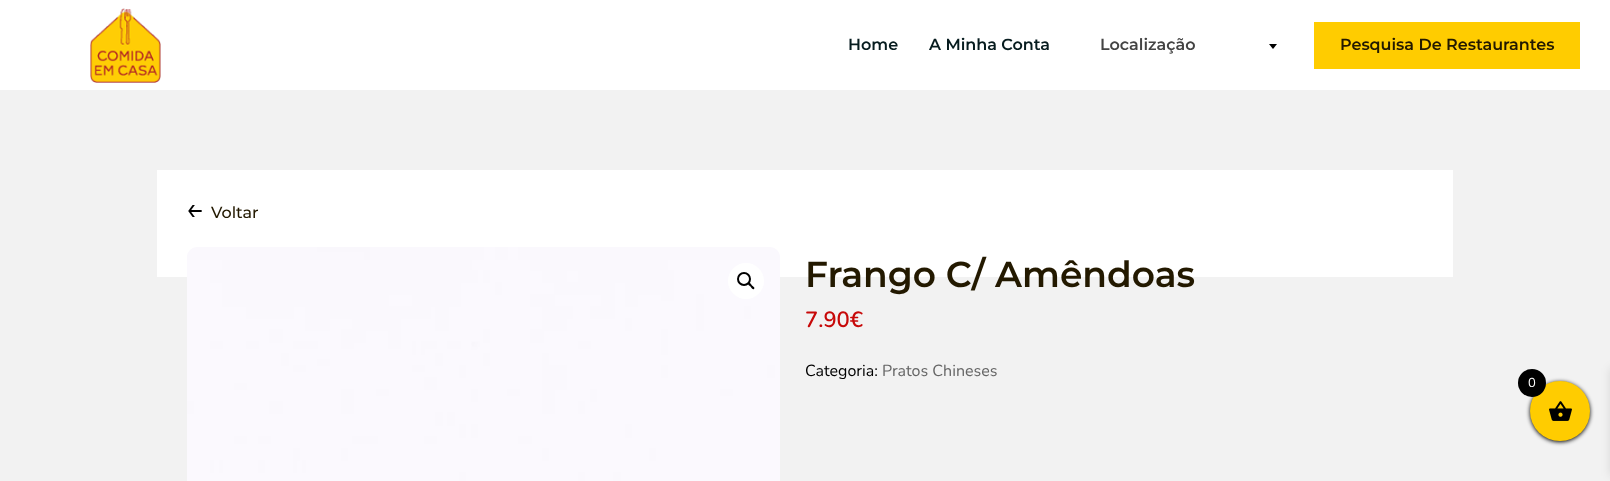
<svg xmlns="http://www.w3.org/2000/svg" width="1610" height="481">
<style>
.a{font:100 16px Montserrat;fill:#071c1f}
.b{font:100 16px Montserrat;fill:#444}
.c{font:100 16px Montserrat;fill:#231900}
.d{font:500 16px Montserrat;fill:#231900}
.e{font:100 36px Montserrat;fill:#231900}
.f{font:600 22px Nunito;fill:#c70909}
.g{font:200 16px Nunito;fill:#000}
.h{font:200 16px Nunito;fill:#656565}
.i{font:200 13px Nunito;fill:#fff}
</style>
<rect width="100%" height="100%" fill="#fff"/>
<image href="1.png" x="90" y="8" width="71" height="75"/>
<path fill="#000" d="M1269 44h8l-4 5z"/>
<path fill="#fc0" d="M1314 22h266v47H1314z"/>
<path fill="#f2f2f2" d="M0 90h1610v391H0z"/>
<path fill="#fff" d="M157 170h1296v107H157z"/>
<image href="2.png" x="188" y="205" width="14" height="12"/>
<image href="3.png" x="187" y="247" width="593" height="234"/>
<circle fill="#fff" cx="746" cy="281" r="18"/>
<circle fill="none" stroke="#000" stroke-width="2" cx="744" cy="279" r="6"/>
<path fill="#000" d="M748.5 283c1-1 3 1.5 3.5 2.5c.5 .5 3.5 2 2 3.5c-1 1-3-1.5-3.5-2.5c-.5-.5-3.5-2-2-3.5z"/>
<rect fill="#000" filter="blur(2px)" x="1530" y="382" width="60" height="60" rx="30"/>
<circle fill="#fc0" cx="1560" cy="411" r="30"/>
<circle fill="#000" cx="1532" cy="383" r="14"/>
<image href="4.png" x="1549" y="401" width="23" height="20"/>
<path fill="#0000001a" filter="blur(5px)" d="M1610 368h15v108H1610z"/>
<text class="a" x="848" y="50">Home</text>
<text class="a" x="929" y="50">A Minha Conta</text>
<text class="b" x="1100" y="50">Localização</text>
<text class="c" x="1340" y="50">Pesquisa De Restaurantes</text>
<text class="d" x="211" y="218">Voltar</text>
<text class="e" x="805" y="287">Frango C/ Amêndoas</text>
<text class="f" x="805" y="327">7.90€</text>
<text class="g" x="805" y="376">Categoria:</text>
<text class="h" x="882" y="376">Pratos Chineses</text>
<text class="i" x="1528" y="387">0</text>
</svg>
